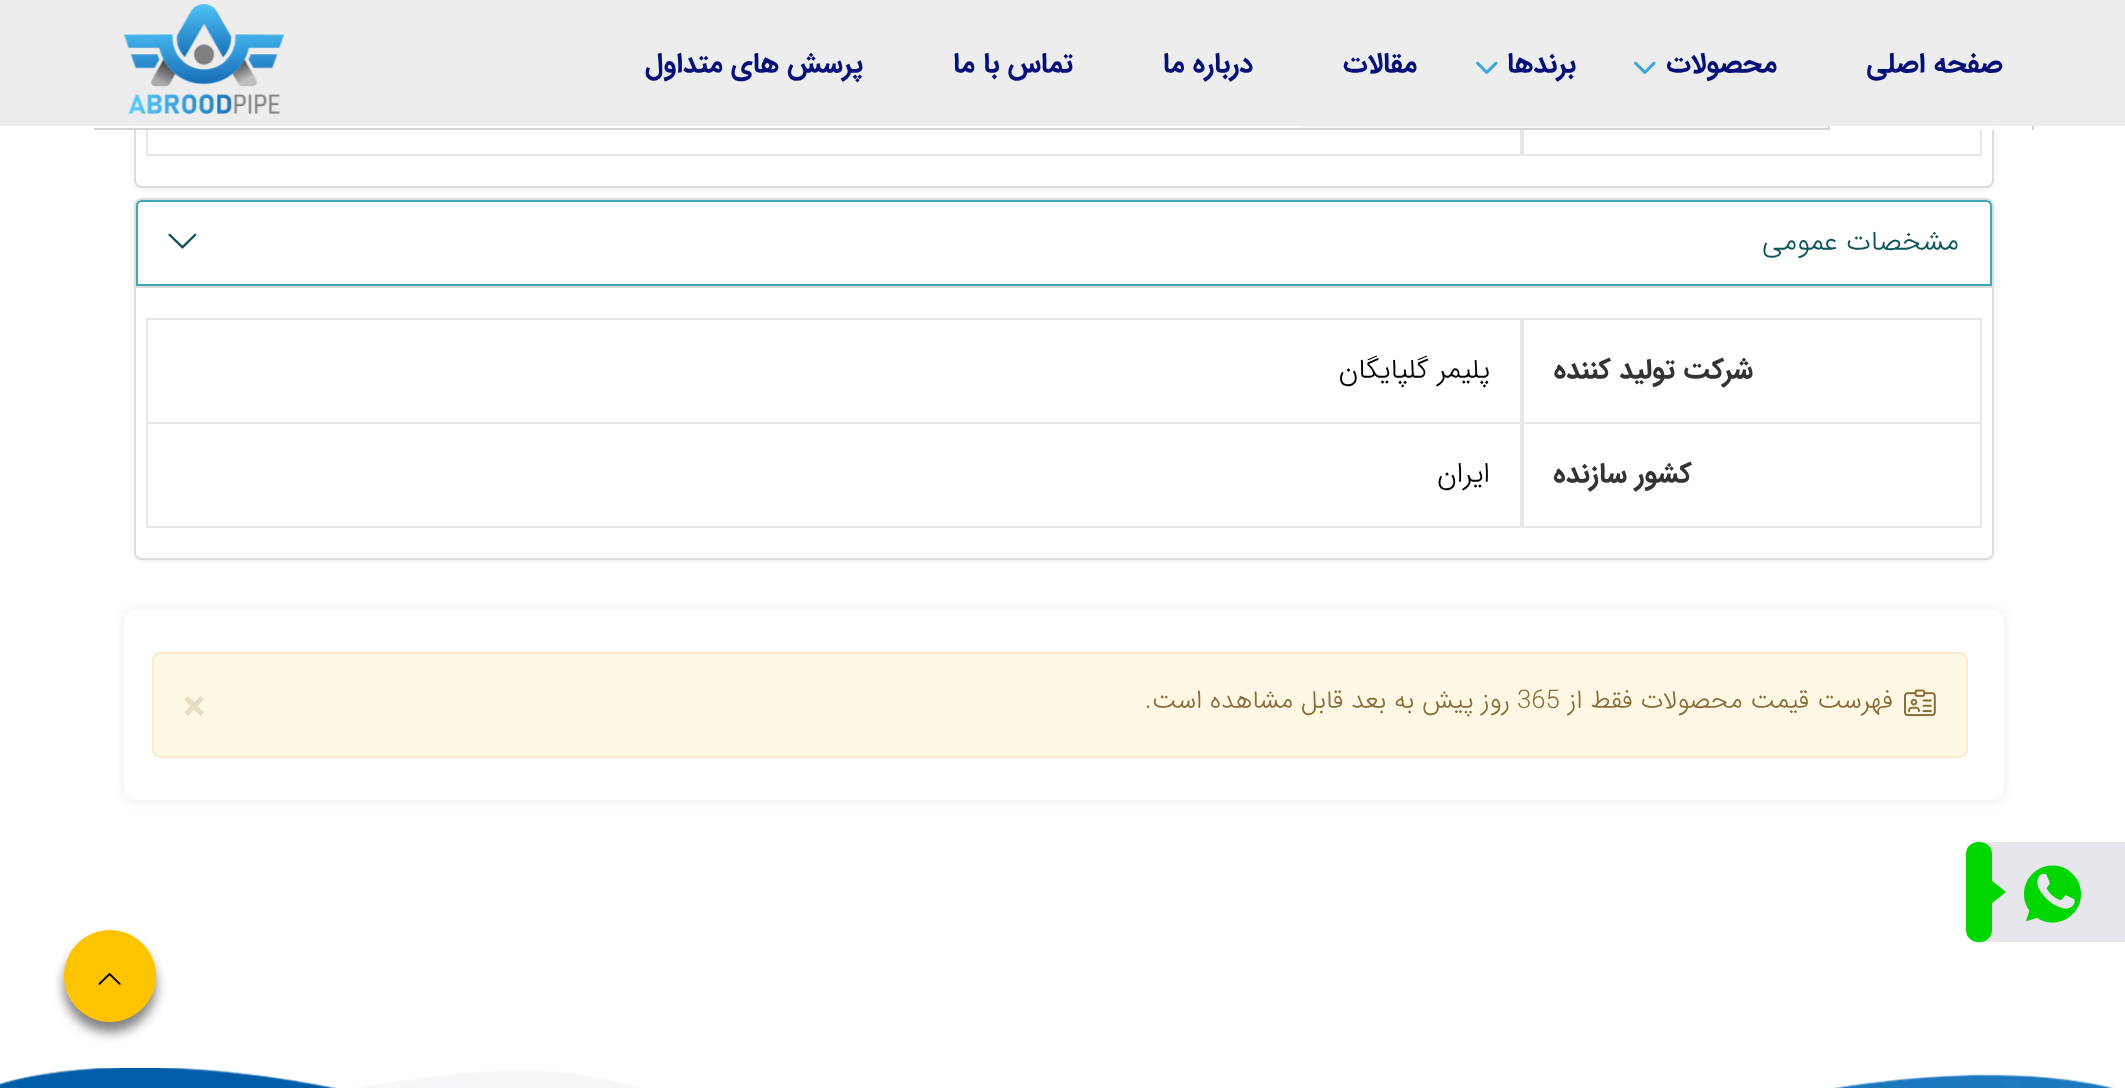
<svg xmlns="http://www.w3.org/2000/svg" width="2125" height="1088">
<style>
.a{font:bold 28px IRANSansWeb;direction:rtl;fill:#051178}
.b{font:300 28px IRANSansWeb;direction:rtl;fill:#0e545d}
.c{font:bold 28px IRANSansWeb;direction:rtl;fill:#333}
.d{font:300 28px IRANSansWeb;direction:rtl;fill:#000}
.e{font:300 25.75px IRANSansWeb;direction:rtl;fill:#8a6d3b}
.f{font:300 25.75px IRANSansWeb;fill:#8a6d3b}
.g{font:bold 42px IRANSansWeb;fill:#e5dcc1}
</style>
<defs>
<clipPath id="clip1"><path d="M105 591h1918v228h-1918zm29 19h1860c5.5 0 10 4.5 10 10v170c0 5.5-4.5 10-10 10h-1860c-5.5 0-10-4.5-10-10v-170c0-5.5 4.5-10 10-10z" clip-rule="evenodd"/></clipPath>
</defs>
<rect width="100%" height="100%" fill="#fff"/>
<rect fill="#0000000d" filter="blur(2px)" x="134" y="-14" width="1860" height="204" rx="8"/>
<rect fill="#fff" stroke="#ddd" stroke-width="2" x="135" y="-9" width="1858" height="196" rx="7"/>
<path fill="none" stroke="#e8e6e6" stroke-width="2" d="M1523 51h458v104H1523z"/>
<path fill="none" stroke="#e8e6e6" stroke-width="2" d="M147 51h1374v104H147z"/>
<path fill="#fff" d="M132 126h1864v4H132z"/>
<path fill="#d3d3d3" fill-rule="evenodd" d="M1844 20h174c9 0 16 7 16 16v92h-206v-92c0-9 7-16 16-16zm0 2h174c8 0 14 6 14 14v92h-202v-92c0-8 6-14 14-14z"/>
<path fill="#f5f5f5" d="M1548 126h278v2H1548z"/>
<path fill="#f5f5f5" fill-rule="evenodd" d="M1566 20h242c11 0 20 9 20 20v88h-282v-88c0-11 9-20 20-20zm0 2h242c10 0 18 8 18 18v88h-278v-88c0-10 8-18 18-18z"/>
<path fill="#f5f5f5" d="M1302 126h242v2H1302z"/>
<path fill="#f5f5f5" fill-rule="evenodd" d="M1320 20h206c11 0 20 9 20 20v88h-246v-88c0-11 9-20 20-20zm0 2h206c10 0 18 8 18 18v88h-242v-88c0-10 8-18 18-18z"/>
<path fill="#ededed" d="M0 0h2125v126H0z"/>
<image href="1.png" x="1634" y="61" width="22" height="13"/>
<image href="1.png" x="1476" y="61" width="22" height="13"/>
<image href="2.png" x="123" y="4" width="161" height="110"/>
<path fill="#e6e6ec" d="M1978 842h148v100h-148c-6.5 0-12-5.5-12-12v-76c0-6.5 5.5-12 12-12z"/>
<image href="3.png" x="2024" y="865" width="57" height="58"/>
<rect fill="#00d600" x="1966" y="842" width="26" height="100" rx="12"/>
<path fill="#00d600" d="M1986 908v-32l20 16z"/>
<path fill="#d3d3d3" d="M94 128h1940v2H94z"/>
<path fill="#fff" d="M1830 128h202v2H1830z"/>
<rect fill="#0000000d" filter="blur(2px)" x="134" y="200" width="1860" height="362" rx="8"/>
<rect fill="#fff" stroke="#ddd" stroke-width="2" x="135" y="199" width="1858" height="360" rx="7"/>
<path fill="none" stroke="#41a7b4" stroke-width="2" d="M142 201h1844c3 0 5 2 5 5v79h-1854v-79c0-3 2-5 5-5z"/>
<image href="4.png" x="168" y="233" width="29" height="16"/>
<path fill="#ddd" d="M136 286h1856v2H136z"/>
<path fill="#e8e6e6" d="M146 318h1836v2H146z"/>
<path fill="#e8e6e6" d="M1980 318h2v104H1980z"/>
<path fill="#e8e6e6" d="M1520 318h4v104H1520z"/>
<path fill="#e8e6e6" d="M146 318h2v104H146z"/>
<path fill="none" stroke="#e8e6e6" stroke-width="2" d="M1523 423h458v104H1523z"/>
<path fill="none" stroke="#e8e6e6" stroke-width="2" d="M147 423h1374v104H147z"/>
<g clip-path="url(#clip1)">
<rect fill="#4a4a4a1f" filter="blur(6px)" x="124" y="610" width="1880" height="190" rx="10"/>
</g>
<rect fill="#fcf8e3" stroke="#faebcc" stroke-width="2" x="153" y="653" width="1814" height="104" rx="7"/>
<image href="5.png" x="1904" y="689" width="32" height="28"/>
<image href="6.png" x="0" y="1068" width="2114" height="20"/>
<rect fill="#00000080" filter="blur(6px)" x="64" y="940" width="92" height="92" rx="46"/>
<circle fill="#ffc400" cx="110" cy="976" r="46"/>
<image href="7.png" x="98" y="973" width="23" height="12"/>
<text class="a" x="2003" y="72">صفحه اصلی</text>
<text class="a" x="1777" y="72">محصولات</text>
<text class="a" x="1576" y="72">برندها</text>
<text class="a" x="1417" y="72">مقالات</text>
<text class="a" x="1253" y="72">درباره ما</text>
<text class="a" x="1073" y="72">تماس با ما</text>
<text class="a" x="863" y="72">پرسش های متداول</text>
<text class="b" x="1959" y="250">مشخصات عمومی</text>
<text class="c" x="1753" y="378">شرکت تولید کننده</text>
<text class="d" x="1490" y="378">پلیمر گلپایگان</text>
<text class="c" x="1692" y="482">کشور سازنده</text>
<text class="d" x="1490" y="482">ایران</text>
<text class="e" x="1893" y="708">فهرست قیمت محصولات فقط از</text>
<text class="f" x="1517" y="708">365</text>
<text class="e" x="1510" y="708">روز پیش به بعد قابل مشاهده است.</text>
<text class="g" x="183" y="720">×</text>
</svg>
